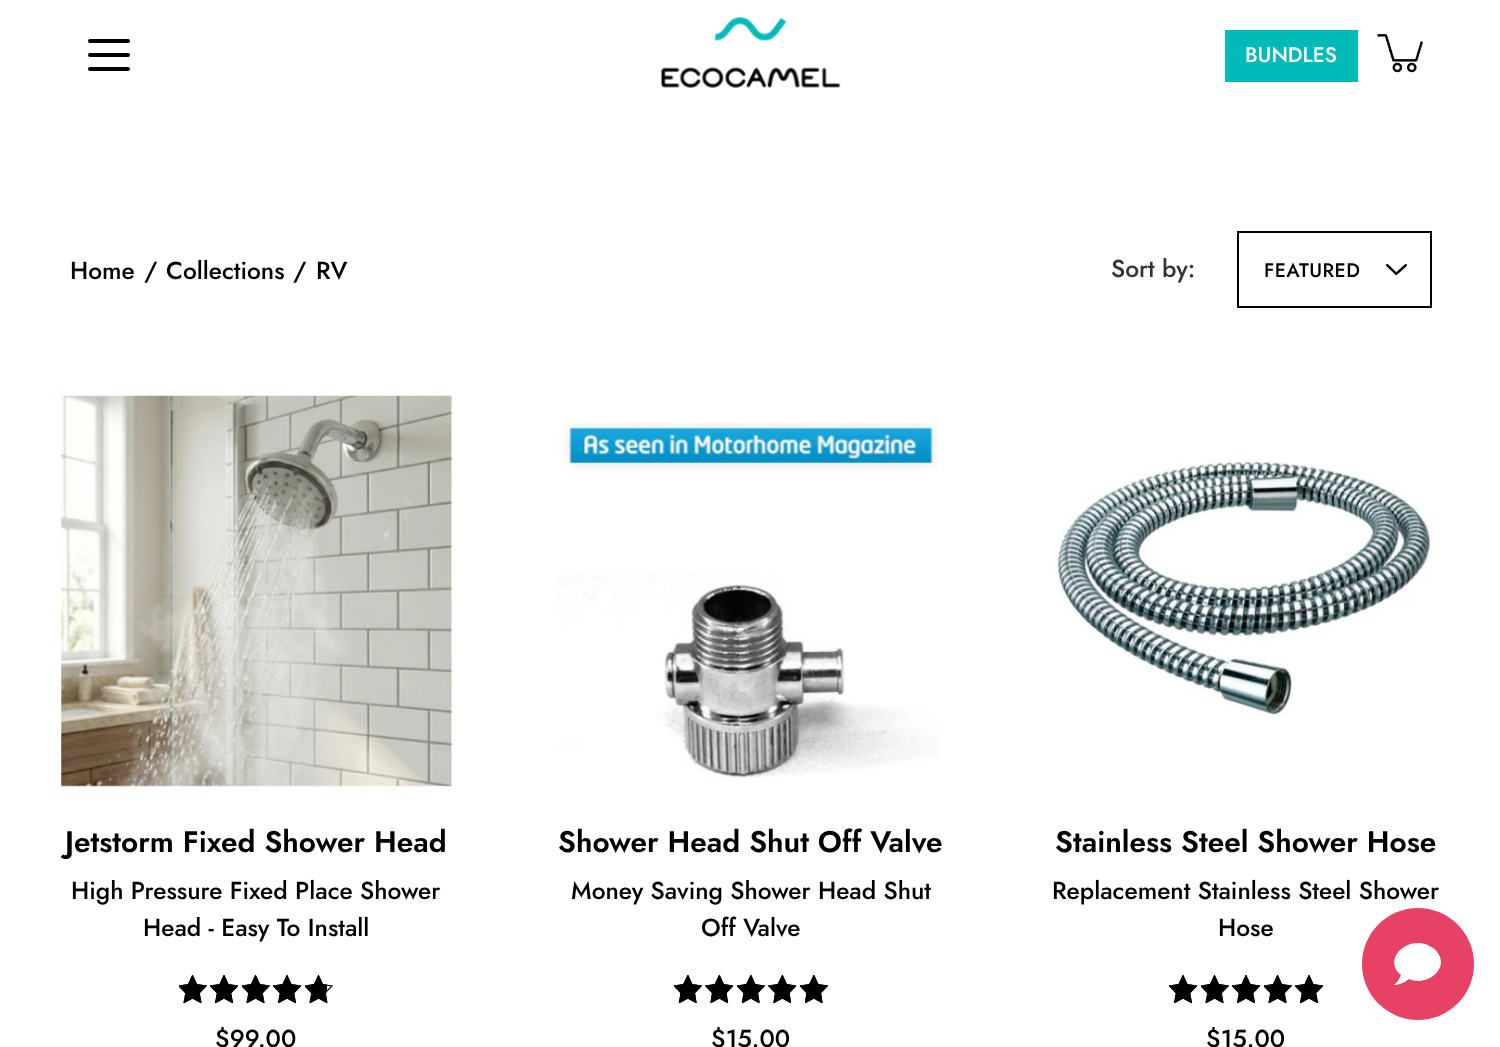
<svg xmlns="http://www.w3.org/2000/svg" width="1500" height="1047">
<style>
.a{font:500 21px Jost;fill:#fff}
.b{font:500 24.5px Jost;fill:#000}
.c{font:500 24.5px Jost;fill:#333}
.d{font:500 19.5px Jost;letter-spacing:0.5px;fill:#000}
.e{font:600 29.75px Jost;fill:#000}
</style>
<defs>
<clipPath id="clip1"><path d="M179 975h28v28H179z"/></clipPath>
<clipPath id="clip2"><path d="M210 975h28v28H210z"/></clipPath>
<clipPath id="clip3"><path d="M242 975h28v28H242z"/></clipPath>
<clipPath id="clip4"><path d="M273 975h28v28H273z"/></clipPath>
<clipPath id="clip5"><path d="M305 975h28v28H305z"/></clipPath>
<clipPath id="clip6"><path d="M674 975h28v28H674z"/></clipPath>
<clipPath id="clip7"><path d="M705 975h28v28H705z"/></clipPath>
<clipPath id="clip8"><path d="M737 975h28v28H737z"/></clipPath>
<clipPath id="clip9"><path d="M768 975h28v28H768z"/></clipPath>
<clipPath id="clip10"><path d="M800 975h28v28H800z"/></clipPath>
<clipPath id="clip11"><path d="M1169 975h28v28H1169z"/></clipPath>
<clipPath id="clip12"><path d="M1201 975h28v28H1201z"/></clipPath>
<clipPath id="clip13"><path d="M1232 975h28v28H1232z"/></clipPath>
<clipPath id="clip14"><path d="M1264 975h28v28H1264z"/></clipPath>
<clipPath id="clip15"><path d="M1295 975h28v28H1295z"/></clipPath>
</defs>
<rect width="100%" height="100%" fill="#fff"/>
<image href="1.png" x="660" y="17" width="181" height="71"/>
<rect fill="#000" x="88" y="53" width="42" height="4" rx="2"/>
<rect fill="#000" x="88" y="39" width="42" height="4" rx="2"/>
<rect fill="#000" x="88" y="67" width="42" height="4" rx="2"/>
<path fill="#02bbb9" d="M1225 30h133v52H1225z"/>
<image href="2.png" x="1377" y="34" width="46" height="39"/>
<path fill="none" stroke="#000" stroke-width="2" d="M1238 232h193v75H1238z"/>
<image href="3.png" x="1386" y="264" width="21" height="11"/>
<image href="4.png" x="61" y="395" width="392" height="392"/>
<g clip-path="url(#clip1)">
<path fill="none" stroke="#000" stroke-width="1.1" d="M196.5 984.5l-4-9l-4 9l-9.5 1.5l7 7l-2 9.5l8.5-4.5l8.5 4.5l-2-9.5l7-7z"/>
</g>
<g clip-path="url(#clip2)">
<path fill="none" stroke="#000" stroke-width="1.1" d="M228 984.5l-4-9l-4 9l-9.5 1.5l7 7l-2 9.5l8.5-4.5l8.5 4.5l-2-9.5l7-7z"/>
</g>
<g clip-path="url(#clip3)">
<path fill="none" stroke="#000" stroke-width="1.1" d="M259.5 984.5l-4-9l-4 9l-9.5 1.5l7 7l-2 9.5l8.5-4.5l8.5 4.5l-2-9.5l7-7z"/>
</g>
<g clip-path="url(#clip4)">
<path fill="none" stroke="#000" stroke-width="1.1" d="M291 984.5l-4-9l-4 9l-9.5 1.5l7 7l-2 9.5l8.5-4.5l8.5 4.5l-2-9.5l7-7z"/>
</g>
<g clip-path="url(#clip5)">
<path fill="none" stroke="#000" stroke-width="1.1" d="M322.5 984.5l-4-9l-4 9l-9.5 1.5l7 7l-2 9.5l8.5-4.5l8.5 4.5l-2-9.5l7-7z"/>
</g>
<image href="5.png" x="179" y="975" width="28" height="28"/>
<image href="6.png" x="210" y="975" width="28" height="28"/>
<image href="5.png" x="242" y="975" width="28" height="28"/>
<image href="6.png" x="273" y="975" width="28" height="28"/>
<image href="7.png" x="305" y="975" width="22" height="28"/>
<image href="8.png" x="558" y="421" width="381" height="357"/>
<g clip-path="url(#clip6)">
<path fill="none" stroke="#000" stroke-width="1.1" d="M692 984.5l-4-9l-4.5 9l-9 1.5l6.5 7l-1.5 9.5l8.5-4.5l8 4.5l-1.5-9.5l6.5-7z"/>
</g>
<g clip-path="url(#clip7)">
<path fill="none" stroke="#000" stroke-width="1.1" d="M723.5 984.5l-4-9l-4.5 9l-9 1.5l6.5 7l-1.5 9.5l8.5-4.5l8 4.5l-1.5-9.5l6.5-7z"/>
</g>
<g clip-path="url(#clip8)">
<path fill="none" stroke="#000" stroke-width="1.1" d="M755 984.5l-4-9l-4.5 9l-9 1.5l6.5 7l-1.5 9.5l8.5-4.5l8 4.5l-1.5-9.5l6.5-7z"/>
</g>
<g clip-path="url(#clip9)">
<path fill="none" stroke="#000" stroke-width="1.1" d="M786.5 984.5l-4-9l-4.5 9l-9 1.5l6.5 7l-1.5 9.5l8.5-4.5l8 4.5l-1.5-9.5l6.5-7z"/>
</g>
<g clip-path="url(#clip10)">
<path fill="none" stroke="#000" stroke-width="1.1" d="M818 984.5l-4-9l-4.5 9l-9 1.5l6.5 7l-1.5 9.5l8.5-4.5l8 4.5l-1.5-9.5l6.5-7z"/>
</g>
<image href="9.png" x="674" y="975" width="28" height="28"/>
<image href="10.png" x="705" y="975" width="28" height="28"/>
<image href="9.png" x="737" y="975" width="28" height="28"/>
<image href="10.png" x="768" y="975" width="28" height="28"/>
<image href="9.png" x="800" y="975" width="28" height="28"/>
<image href="11.png" x="1055" y="459" width="377" height="258"/>
<g clip-path="url(#clip11)">
<path fill="none" stroke="#000" stroke-width="1.1" d="M1187 984.5l-4-9l-4 9l-9.5 1.5l7 7l-2 9.5l8.5-4.5l8.5 4.5l-2-9.5l7-7z"/>
</g>
<g clip-path="url(#clip12)">
<path fill="none" stroke="#000" stroke-width="1.1" d="M1218.5 984.5l-4-9l-4 9l-9.5 1.5l7 7l-2 9.5l8.5-4.5l8.5 4.5l-2-9.5l7-7z"/>
</g>
<g clip-path="url(#clip13)">
<path fill="none" stroke="#000" stroke-width="1.1" d="M1250 984.5l-4-9l-4 9l-9.5 1.5l7 7l-2 9.5l8.5-4.5l8.5 4.5l-2-9.5l7-7z"/>
</g>
<g clip-path="url(#clip14)">
<path fill="none" stroke="#000" stroke-width="1.1" d="M1281.5 984.5l-4-9l-4 9l-9.5 1.5l7 7l-2 9.5l8.5-4.5l8.5 4.5l-2-9.5l7-7z"/>
</g>
<g clip-path="url(#clip15)">
<path fill="none" stroke="#000" stroke-width="1.1" d="M1313 984.5l-4-9l-4 9l-9.5 1.5l7 7l-2 9.5l8.5-4.5l8.5 4.5l-2-9.5l7-7z"/>
</g>
<image href="6.png" x="1169" y="975" width="28" height="28"/>
<image href="5.png" x="1201" y="975" width="28" height="28"/>
<image href="6.png" x="1232" y="975" width="28" height="28"/>
<image href="5.png" x="1264" y="975" width="28" height="28"/>
<image href="6.png" x="1295" y="975" width="28" height="28"/>
<circle fill="#e74266" cx="1418" cy="964" r="56"/>
<path fill="#fff" d="M1418 943c12 0 23 9 23 19c0 10-11 19-23 19c-3 0-6-1-9-2c-7 6-15 6-15 6c6-5 6-9 7-10c-16-13-1-32 17-32"/>
<text class="a" x="1245" y="62">BUNDLES</text>
<text class="b" x="70" y="279">Home</text>
<text class="b" x="144" y="279">/</text>
<text class="b" x="166" y="279">Collections</text>
<text class="b" x="293" y="279">/</text>
<text class="b" x="316" y="279">RV</text>
<text class="c" x="1111" y="277">Sort by:</text>
<text class="d" x="1264" y="277">FEATURED</text>
<text class="e" x="65" y="852">Jetstorm Fixed Shower Head</text>
<text class="b" x="71" y="899">High Pressure Fixed Place Shower</text>
<text class="b" x="143" y="936">Head - Easy To Install</text>
<text class="b" x="215" y="1047">$99.00</text>
<text class="e" x="558" y="852">Shower Head Shut Off Valve</text>
<text class="b" x="571" y="899">Money Saving Shower Head Shut</text>
<text class="b" x="701" y="936">Off Valve</text>
<text class="b" x="711" y="1047">$15.00</text>
<text class="e" x="1055" y="852">Stainless Steel Shower Hose</text>
<text class="b" x="1052" y="899">Replacement Stainless Steel Shower</text>
<text class="b" x="1218" y="936">Hose</text>
<text class="b" x="1206" y="1047">$15.00</text>
</svg>
